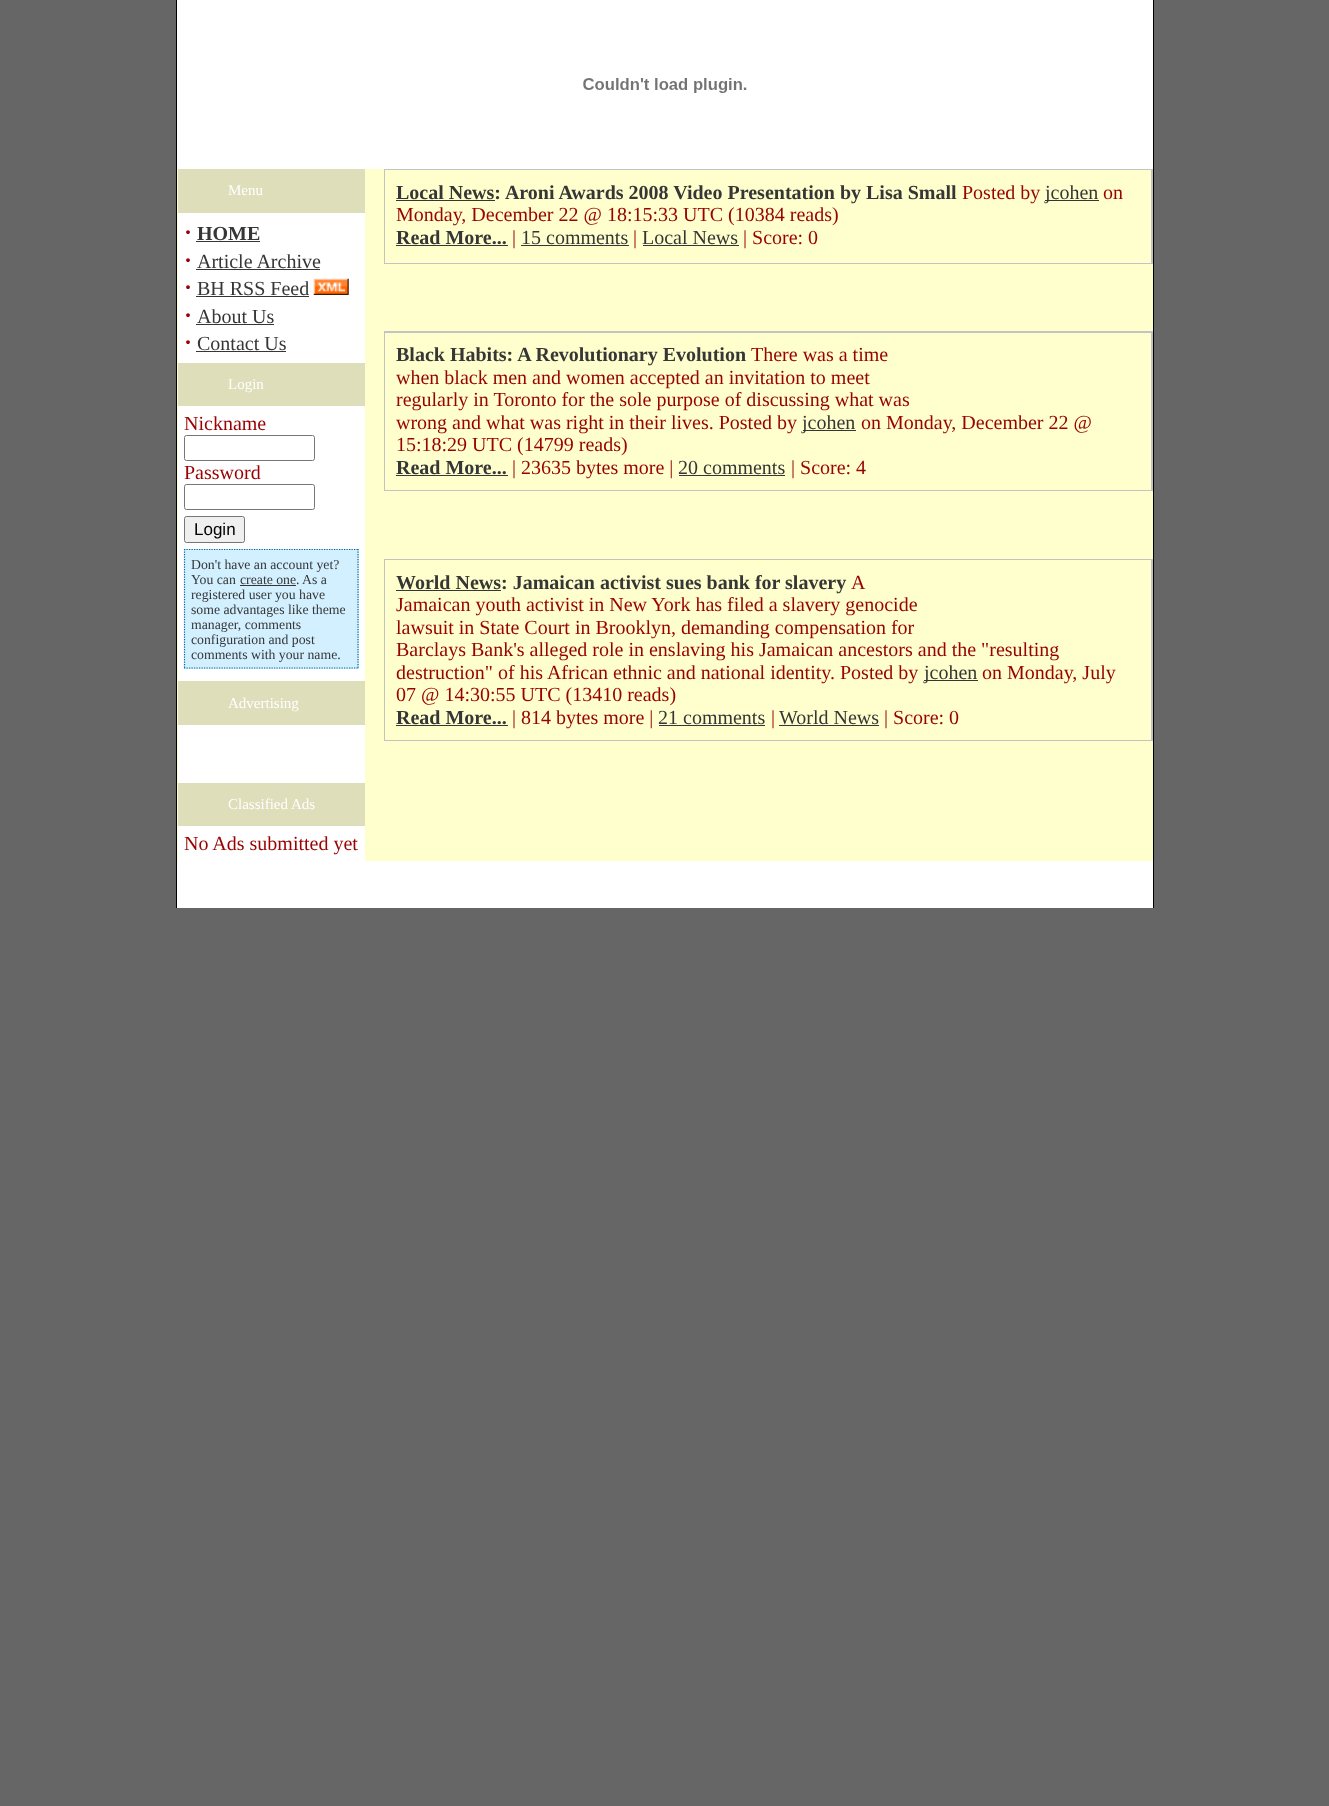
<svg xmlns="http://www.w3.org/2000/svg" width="1329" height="1806">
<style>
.a{font:15px Liberation Serif;fill:#fff}
.b{font:bold 24px Liberation Serif;fill:#980201}
.c{font:bold 20px Liberation Serif;fill:#363636}
.d{font:20px Liberation Serif;fill:#363636}
.e{font:20px Liberation Serif;fill:#980201}
.f{font:17px Liberation Sans;fill:#000}
.g{font:13.75px Liberation Serif;fill:#363636}
</style>
<rect width="100%" height="100%" fill="#666"/>
<path fill="#fff" d="M177 0h976v169H177z"/>
<path fill="#000" d="M1153 0h1v908H1153z"/>
<path fill="#000" d="M176 0h1v908H176z"/>
<image href="1.png" x="583" y="78" width="164" height="15"/>
<path fill="#ffffcd" d="M177 169h976v692H177z"/>
<path fill="#dedebb" d="M178 169h187v44H178z"/>
<path fill="#fff" d="M178 213h187v150H178z"/>
<path fill="#363636" d="M196 241h64v1H196z"/>
<path fill="#363636" d="M196 269h124v1H196z"/>
<path fill="#363636" d="M196 296h113v1H196z"/>
<image href="2.png" x="313" y="278" width="36" height="17"/>
<path fill="#363636" d="M196 324h78v1H196z"/>
<path fill="#363636" d="M196 351h90v1H196z"/>
<path fill="#dedebb" d="M178 363h187v43H178z"/>
<path fill="#fff" d="M178 406h187v275H178z"/>
<rect fill="none" stroke="#767676" x="184.5" y="435.5" width="130" height="25" rx="2"/>
<rect fill="none" stroke="#767676" x="184.5" y="484.5" width="130" height="25" rx="2"/>
<rect fill="#efefef" stroke="#767676" x="184.5" y="516.5" width="60" height="26" rx="2"/>
<path fill="#d2f0ff" d="M184 549h175v120H184z"/>
<path fill="none" stroke="#069" stroke-width="1.2" stroke-dasharray="1.25 1.25" d="M184 549.5h175"/>
<path fill="none" stroke="#069" stroke-width="1.2" stroke-dasharray="1.25 1.25" d="M358 549v120"/>
<path fill="none" stroke="#069" stroke-width="1.2" stroke-dasharray="1.25 1.25" d="M184 668h175"/>
<path fill="none" stroke="#069" stroke-width="1.2" stroke-dasharray="1.25 1.25" d="M184.5 549v120"/>
<path fill="#363636" d="M240 585h56v1H240z"/>
<path fill="#dedebb" d="M178 681h187v44H178z"/>
<path fill="#fff" d="M178 725h187v58H178z"/>
<path fill="#dedebb" d="M178 783h187v43H178z"/>
<path fill="#fff" d="M178 826h187v35H178z"/>
<path fill="#c3c3c3" d="M384 169h769v95H384z"/>
<path fill="#ffffcd" d="M385 170h766v93H385z"/>
<path fill="#363636" d="M396 200h99v1H396z"/>
<path fill="#363636" d="M1045 200h54v1H1045z"/>
<path fill="#363636" d="M396 245h112v1H396z"/>
<path fill="#363636" d="M521 245h108v1H521z"/>
<path fill="#363636" d="M643 245h96v1H643z"/>
<path fill="#c3c3c3" d="M384 331h769v160H384z"/>
<path fill="#ffffcd" d="M385 333h766v157H385z"/>
<path fill="#363636" d="M803 430h53v1H803z"/>
<path fill="#363636" d="M396 475h112v1H396z"/>
<path fill="#363636" d="M679 475h106v1H679z"/>
<path fill="#c3c3c3" d="M384 559h769v182H384z"/>
<path fill="#ffffcd" d="M385 560h766v180H385z"/>
<path fill="#363636" d="M396 590h105v1H396z"/>
<path fill="#363636" d="M924 680h54v1H924z"/>
<path fill="#363636" d="M396 725h112v1H396z"/>
<path fill="#363636" d="M659 725h106v1H659z"/>
<path fill="#363636" d="M779 725h100v1H779z"/>
<path fill="#fff" d="M177 861h976v47H177z"/>
<text class="a" x="228" y="195">Menu</text>
<text class="b" x="184" y="240">·</text>
<text class="c" x="197" y="240">HOME</text>
<text class="b" x="184" y="268">·</text>
<text class="d" x="197" y="268">Article Archive</text>
<text class="b" x="184" y="295">·</text>
<text class="d" x="197" y="295">BH RSS Feed</text>
<text class="b" x="184" y="323">·</text>
<text class="d" x="197" y="323">About Us</text>
<text class="b" x="184" y="350">·</text>
<text class="d" x="197" y="350">Contact Us</text>
<text class="a" x="228" y="389">Login</text>
<text class="e" x="184" y="430">Nickname</text>
<text class="e" x="184" y="479">Password</text>
<text class="f" x="194" y="535">Login</text>
<text class="g" x="191" y="569">Don't have an account yet?</text>
<text class="g" x="191" y="584">You can</text>
<text class="g" x="240" y="584">create one</text>
<text class="g" x="296" y="584">. As a</text>
<text class="g" x="191" y="599">registered user you have</text>
<text class="g" x="191" y="614">some advantages like theme</text>
<text class="g" x="191" y="629">manager, comments</text>
<text class="g" x="191" y="644">configuration and post</text>
<text class="g" x="191" y="659">comments with your name.</text>
<text class="a" x="228" y="708">Advertising</text>
<text class="a" x="228" y="809">Classified Ads</text>
<text class="e" x="184" y="850">No Ads submitted yet</text>
<text class="c" x="396" y="199">Local News: Aroni Awards 2008 Video Presentation by Lisa Small</text>
<text class="e" x="962" y="199">Posted by</text>
<text class="d" x="1045" y="199">jcohen</text>
<text class="e" x="1103" y="199">on</text>
<text class="e" x="396" y="221">Monday, December 22 @ 18:15:33 UTC (10384 reads)</text>
<text class="c" x="396" y="244">Read More...</text>
<text class="e" x="512" y="244">|</text>
<text class="d" x="521" y="244">15 comments</text>
<text class="e" x="633" y="244">|</text>
<text class="d" x="642" y="244">Local News</text>
<text class="e" x="743" y="244">| Score: 0</text>
<text class="c" x="396" y="361">Black Habits: A Revolutionary Evolution</text>
<text class="e" x="751" y="361">There was a time</text>
<text class="e" x="396" y="384">when black men and women accepted an invitation to meet</text>
<text class="e" x="396" y="406">regularly in Toronto for the sole purpose of discussing what was</text>
<text class="e" x="396" y="429">wrong and what was right in their lives. Posted by</text>
<text class="d" x="802" y="429">jcohen</text>
<text class="e" x="861" y="429">on Monday, December 22 @</text>
<text class="e" x="396" y="451">15:18:29 UTC (14799 reads)</text>
<text class="c" x="396" y="474">Read More...</text>
<text class="e" x="512" y="474">| 23635 bytes more |</text>
<text class="d" x="678" y="474">20 comments</text>
<text class="e" x="791" y="474">| Score: 4</text>
<text class="c" x="396" y="589">World News: Jamaican activist sues bank for slavery</text>
<text class="e" x="851" y="589">A</text>
<text class="e" x="396" y="611">Jamaican youth activist in New York has filed a slavery genocide</text>
<text class="e" x="396" y="634">lawsuit in State Court in Brooklyn, demanding compensation for</text>
<text class="e" x="396" y="656">Barclays Bank's alleged role in enslaving his Jamaican ancestors and the "resulting</text>
<text class="e" x="396" y="679">destruction" of his African ethnic and national identity. Posted by</text>
<text class="d" x="924" y="679">jcohen</text>
<text class="e" x="982" y="679">on Monday, July</text>
<text class="e" x="396" y="701">07 @ 14:30:55 UTC (13410 reads)</text>
<text class="c" x="396" y="724">Read More...</text>
<text class="e" x="512" y="724">| 814 bytes more |</text>
<text class="d" x="658" y="724">21 comments</text>
<text class="e" x="771" y="724">|</text>
<text class="d" x="779" y="724">World News</text>
<text class="e" x="884" y="724">| Score: 0</text>
</svg>
